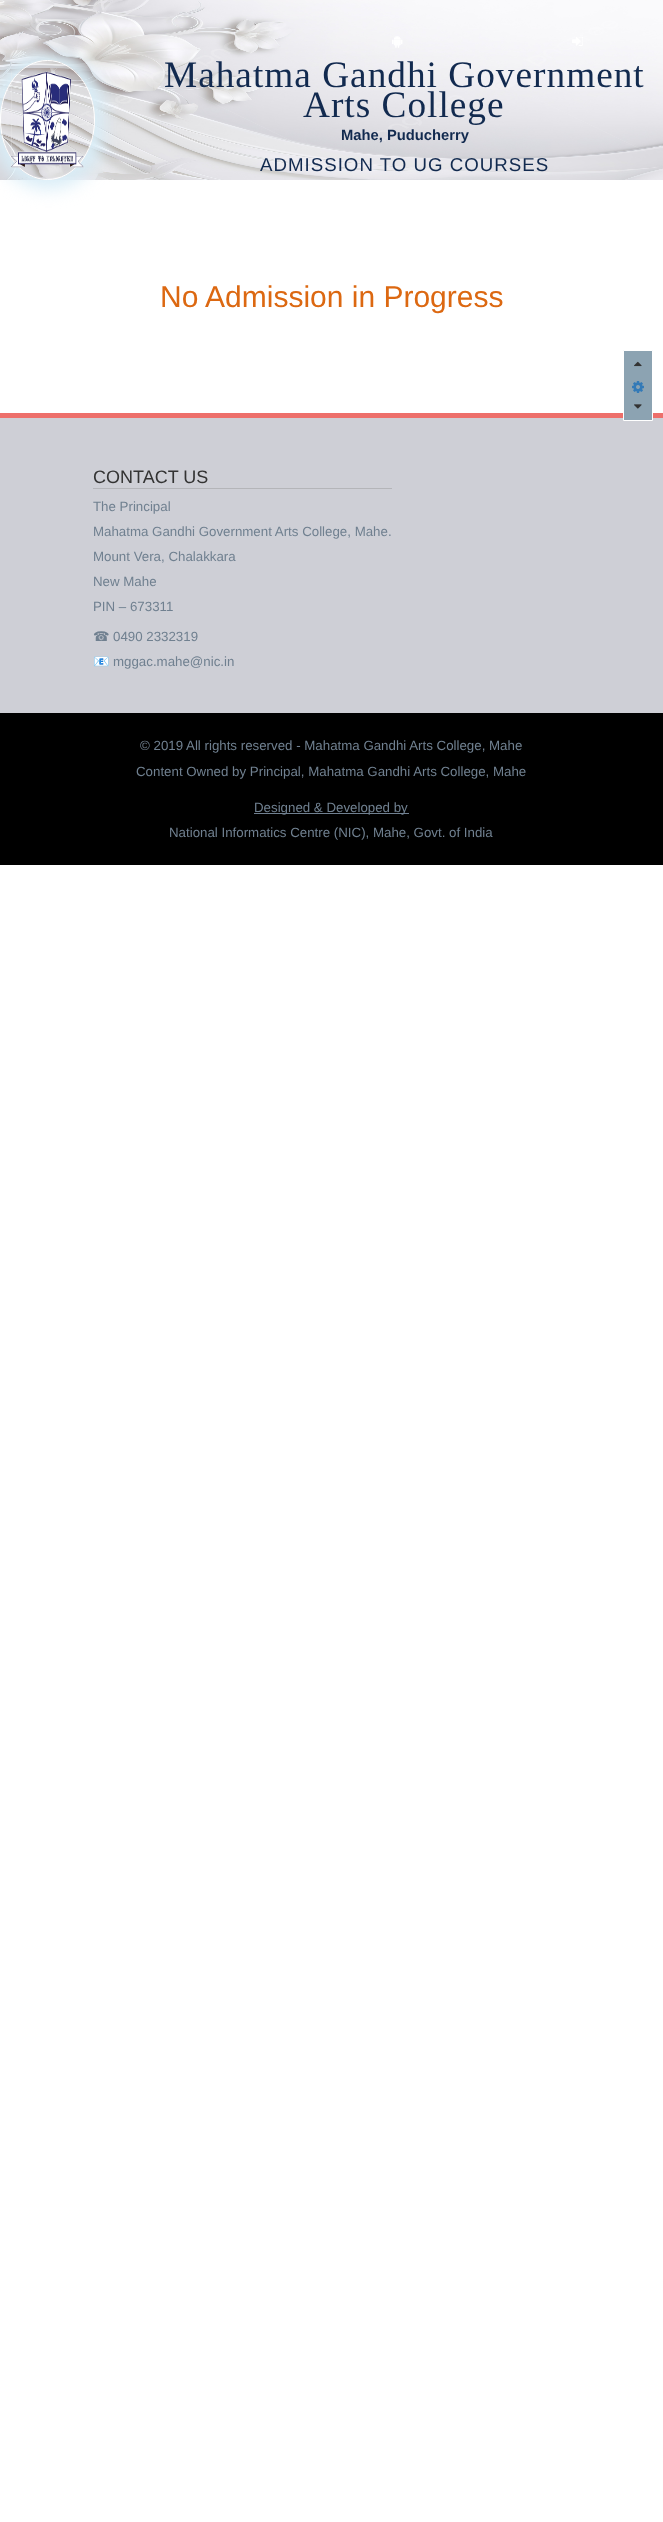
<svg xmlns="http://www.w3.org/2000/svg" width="663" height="2522">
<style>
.a{font:37.3px Liberation Serif;letter-spacing:1px;fill:#122a4f}
.b{font:bold 14.75px Liberation Sans;fill:#122a4f}
.c{font:18.7px Liberation Sans;letter-spacing:1px;fill:#122a4f}
.d{font:30px Liberation Sans;fill:#dc6811}
.e{font:18px Liberation Sans;fill:#333}
.f{font:13.3px Liberation Sans;fill:#708090}
.g{font:13.3px DejaVu Sans;fill:#708090}
.h{font:13.3px Noto Color Emoji;fill:#708090}
</style>
<defs>
<clipPath id="clip1"><path d="M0 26h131v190h-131zm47.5 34c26 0 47.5 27 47.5 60c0 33-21.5 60-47.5 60c-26 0-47.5-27-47.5-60c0-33 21.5-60 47.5-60z" clip-rule="evenodd"/></clipPath>
<clipPath id="clip2"><path d="M93 624h299v50H93z"/></clipPath>
</defs>
<rect width="100%" height="100%" fill="#fff"/>
<image href="1.png" x="0" y="0" width="663" height="180"/>
<image href="2.png" x="392" y="36" width="11" height="12"/>
<image href="3.png" x="572" y="37" width="11" height="9"/>
<g clip-path="url(#clip1)">
<rect fill="#d9edf7" filter="blur(8.5px)" x="-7" y="53" width="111" height="136" rx="55.5"/>
</g>
<path fill="none" stroke="#fff" d="M47.5 60.5c26 0 47 26.5 47 59.5c0 33-21 59.5-47 59.5c-26 0-47-26.5-47-59.5c0-33 21-59.5 47-59.5z"/>
<image href="4.png" x="11" y="71" width="73" height="97"/>
<path fill="#cecfd6" d="M0 418h663v295H0z"/>
<path fill="#ed6f6b" d="M0 413h663v5H0z"/>
<path fill="#8ca3b2" stroke="#fff" d="M623.5 350.5h29v70H623.5z"/>
<image href="5.png" x="634" y="361" width="8" height="6"/>
<image href="6.png" x="632" y="381" width="12" height="12"/>
<image href="7.png" x="634" y="404" width="8" height="5"/>
<path fill="#b4b5b9" d="M93 488h299v1H93z"/>
<path fill="#000" d="M0 713h663v152H0z"/>
<path fill="#708090" d="M254 813h155v1H254z"/>
<text class="a" x="164" y="87">Mahatma Gandhi Government</text>
<text class="a" x="303" y="117">Arts College</text>
<text class="b" x="341" y="140">Mahe, Puducherry</text>
<text class="c" x="260" y="171">ADMISSION TO UG COURSES</text>
<text class="d" x="160" y="307">No Admission in Progress</text>
<text class="e" x="93" y="483">CONTACT US</text>
<text class="f" x="93" y="511">The Principal</text>
<text class="f" x="93" y="536">Mahatma Gandhi Government Arts College, Mahe.</text>
<text class="f" x="93" y="561">Mount Vera, Chalakkara</text>
<text class="f" x="93" y="586">New Mahe</text>
<text class="f" x="93" y="611">PIN – 673311</text>
<text class="g" x="93" y="641">☎</text>
<text class="f" x="113" y="641">0490 2332319</text>
<g clip-path="url(#clip2)">
<text class="h" x="93" y="666">📧</text>
</g>
<text class="f" x="113" y="666">mggac.mahe@nic.in</text>
<text class="f" x="140" y="750">© 2019 All rights reserved - Mahatma Gandhi Arts College, Mahe</text>
<text class="f" x="136" y="776">Content Owned by Principal, Mahatma Gandhi Arts College, Mahe</text>
<text class="f" x="254" y="812">Designed &amp; Developed by</text>
<text class="f" x="169" y="837">National Informatics Centre (NIC), Mahe, Govt. of India</text>
</svg>
